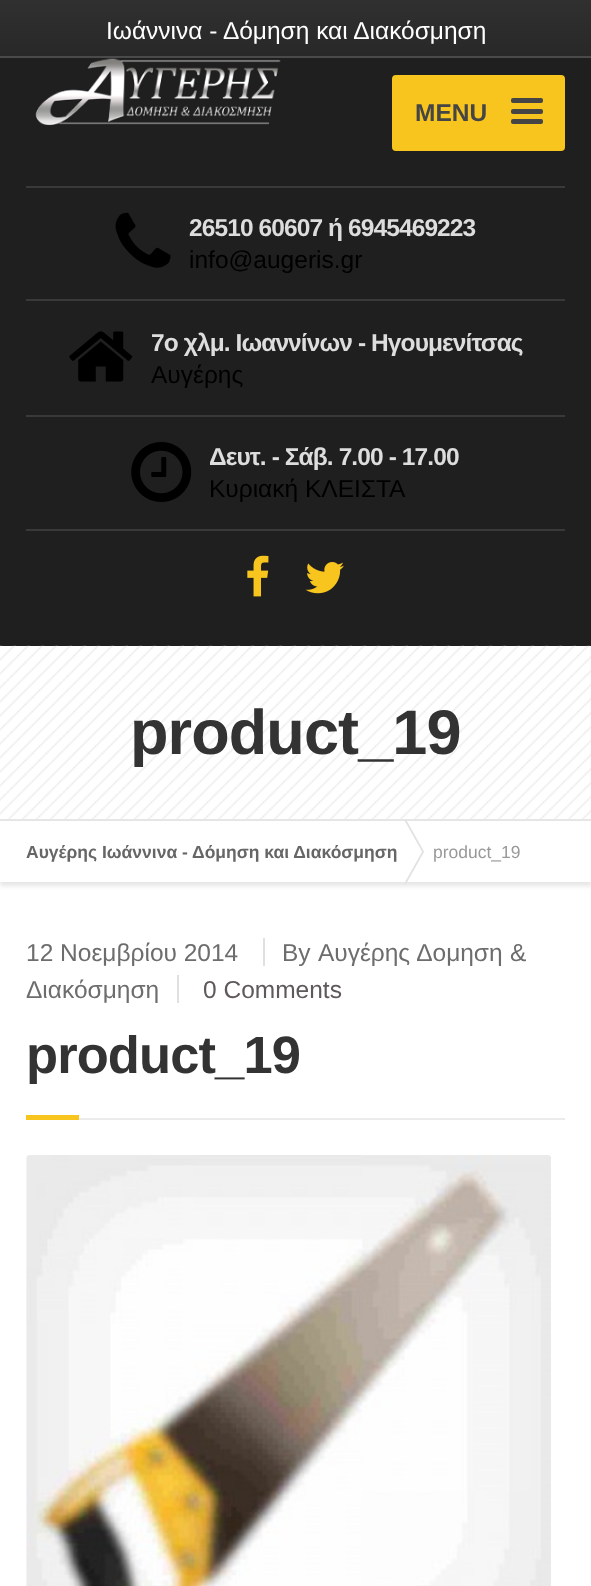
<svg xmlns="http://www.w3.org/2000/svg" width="591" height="1586">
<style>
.a{font:24.5px Liberation Sans;fill:#fff}
.b{font:bold 24.5px Liberation Sans;fill:#454545}
.c{font:bold 24.5px Liberation Sans;letter-spacing:-0.9px;fill:#ddd}
.d{font:24.5px Liberation Sans;fill:#000}
.e{font:bold 63px Liberation Sans;letter-spacing:-0.9px;fill:#333}
.f{font:bold 17.5px Liberation Sans;fill:#666}
.g{font:17.5px Liberation Sans;fill:#999}
.h{font:24.5px Liberation Sans;fill:#6d6d6d}
.i{font:24.5px Liberation Sans;fill:#5f5959}
.j{font:bold 52.5px Liberation Sans;letter-spacing:-0.9px;fill:#333}
</style>
<defs>
<linearGradient id="g1" gradientUnits="userSpaceOnUse" x1="296" y1="0" x2="296" y2="56"><stop offset="0" stop-color="#303030"/><stop offset="1" stop-color="#282828"/></linearGradient>
<clipPath id="clip1"><path d="M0 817h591v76h-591zm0 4h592v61h-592z" clip-rule="evenodd"/></clipPath>
</defs>
<rect width="100%" height="100%" fill="#fff"/>
<path fill="url(#g1)" d="M0 0h591v56H0z"/>
<path fill="#4a4a4a" d="M0 56h591v2H0z"/>
<path fill="#1f1f1f" d="M0 58h591v588H0z"/>
<image href="1.png" x="35" y="58" width="246" height="68"/>
<rect fill="#f7c51e" x="392" y="75" width="173" height="76" rx="4"/>
<rect fill="#454545" x="511" y="98" width="32" height="5" rx="2"/>
<rect fill="#454545" x="511" y="109" width="32" height="5" rx="2"/>
<rect fill="#454545" x="511" y="119" width="32" height="5" rx="2"/>
<path fill="#393939" d="M26 186h539v2H26z"/>
<path fill="#393939" d="M26 299h539v2H26z"/>
<image href="2.png" x="115" y="212" width="56" height="56"/>
<path fill="#393939" d="M26 415h539v2H26z"/>
<image href="3.png" x="69" y="331" width="64" height="51"/>
<path fill="#393939" d="M26 529h539v2H26z"/>
<image href="4.png" x="131" y="442" width="61" height="60"/>
<image href="5.png" x="247" y="555" width="22" height="42"/>
<image href="6.png" x="305" y="562" width="39" height="32"/>
<image href="7.png" x="0" y="645" width="591" height="174"/>
<path fill="#e6e6e6" d="M0 819h591v2H0z"/>
<g clip-path="url(#clip1)">
<path fill="#e6e6e6" filter="blur(2px)" d="M0 824h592v62H0z"/>
</g>
<path fill="#e2e2e2" d="M404.5 820.5l1.5-1l18 32l-1.5 1z"/>
<path fill="#e2e2e2" d="M422.5 851l1.5 1l-18 32l-1.5-1z"/>
<path fill="#e0e0e0" d="M263 938h2v28H263z"/>
<path fill="#e0e0e0" d="M177 975h2v28H177z"/>
<path fill="#ebebeb" d="M79 1118h486v2H79z"/>
<path fill="#f7c51e" d="M26 1115h53v5H26z"/>
<image href="8.png" x="26" y="1155" width="525" height="431"/>
<text class="a" x="106" y="39">Ιωάννινα - Δόμηση και Διακόσμηση</text>
<text class="b" x="415" y="121">MENU</text>
<text class="c" x="189" y="236">26510 60607 ή 6945469223</text>
<text class="d" x="189" y="268">info@augeris.gr</text>
<text class="c" x="151" y="351">7ο χλμ. Ιωαννίνων - Ηγουμενίτσας</text>
<text class="d" x="151" y="383">Αυγέρης</text>
<text class="c" x="209" y="465">Δευτ. - Σάβ. 7.00 - 17.00</text>
<text class="d" x="209" y="497">Κυριακή ΚΛΕΙΣΤΑ</text>
<text class="e" x="130" y="754">product_19</text>
<text class="f" x="26" y="858">Αυγέρης Ιωάννινα - Δόμηση και Διακόσμηση</text>
<text class="g" x="433" y="858">product_19</text>
<text class="h" x="26" y="961">12 Νοεμβρίου 2014</text>
<text class="h" x="282" y="961" word-spacing="0.5">By Αυγέρης Δομηση &amp;</text>
<text class="h" x="26" y="998">Διακόσμηση</text>
<text class="i" x="203" y="998">0 Comments</text>
<text class="j" x="26" y="1073">product_19</text>
</svg>
